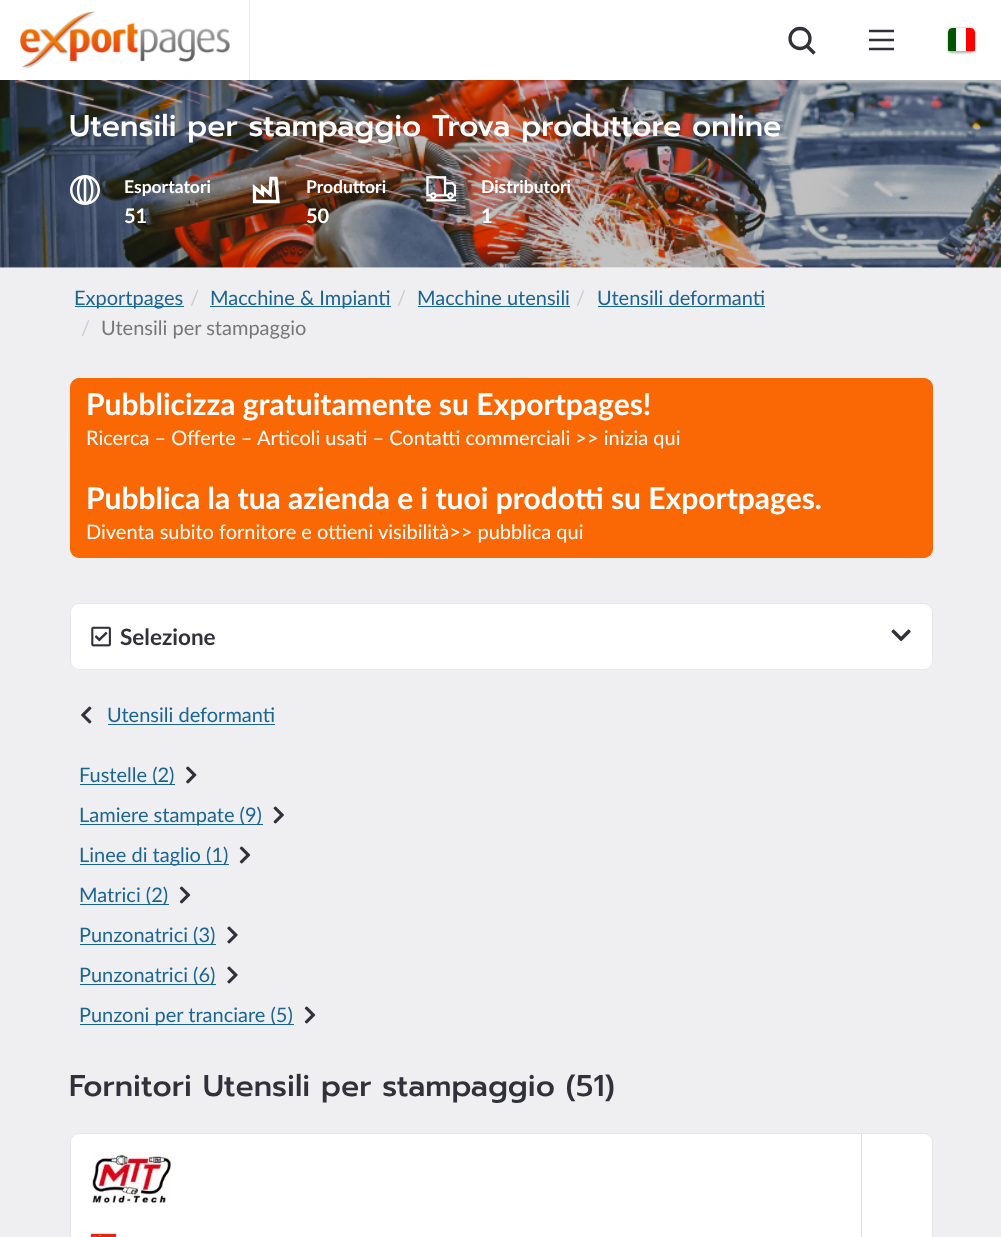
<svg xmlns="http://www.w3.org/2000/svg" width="1001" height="1237">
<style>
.a{font:500 30px Prompt;fill:#fff}
.b{font:bold 17.5px Lato;fill:#fff}
.c{font:bold 20px Lato;fill:#fff}
.d{font:20px Lato;fill:#1b6595}
.e{font:20px Lato;fill:#ccc}
.f{font:20px Lato;fill:#777}
.g{font:bold 30px Lato;fill:#fff}
.h{font:20px Lato;fill:#fff}
.i{font:bold 22.5px Lato;fill:#31313b}
.j{font:500 30px Prompt;fill:#31313b}
</style>
<defs>
<clipPath id="clip1"><rect x="948" y="28" width="27" height="25" rx="4"/></clipPath>
</defs>
<rect width="100%" height="100%" fill="#fff"/>
<image href="1.png" x="20" y="11" width="210" height="58"/>
<path fill="#ebebef" d="M249 0h1v80H249z"/>
<circle fill="none" stroke="#31313b" stroke-width="3.3" cx="800" cy="38.5" r="10"/>
<path fill="none" stroke="#31313b" stroke-width="3.3" d="M807 46l7.5 7.5"/>
<path fill="none" stroke="#31313b" stroke-width="2.5" d="M869 49h25m-25-9h25m-25-9h25"/>
<rect fill="#0000004d" filter="blur(1px)" x="948" y="28" width="27" height="25" rx="4"/>
<g clip-path="url(#clip1)">
<path fill="#fff" d="M952 28h19c2 0 4 2 4 4v19h-27v-19c0-2 2-4 4-4z"/>
<path fill="#005700" d="M952 28h4v23h-8v-19c0-2 2-4 4-4z"/>
<path fill="#fc0000" d="M966 28h5c2 0 4 2 4 4v19h-9z"/>
</g>
<image href="2.png" x="0" y="80" width="1001" height="188"/>
<image href="3.png" x="70" y="175" width="30" height="30"/>
<path fill="none" stroke="#fff" stroke-width="3.3" d="M278 201.5l-2-23h-5l-1 15.5l-7.5-6.5v6.5l-8-6.5v14z"/>
<image href="4.png" x="426" y="176" width="30" height="26"/>
<path fill="#efeff1" d="M0 268h1001v969H0z"/>
<path fill="#1b6595" d="M75 306h109v1H75z"/>
<path fill="#1b6595" d="M210 306h181v1H210z"/>
<path fill="#1b6595" d="M418 306h152v1H418z"/>
<path fill="#1b6595" d="M598 306h167v1H598z"/>
<rect fill="#fa6705" stroke="#fa6705" x="70.5" y="378.5" width="862" height="179" rx="8.5"/>
<rect fill="#fff" x="70" y="603" width="863" height="67" rx="9"/>
<rect fill="none" stroke="#31313b1f" x="70.5" y="603.5" width="862" height="66" rx="8.5"/>
<image href="5.png" x="91" y="626" width="20" height="21"/>
<image href="6.png" x="891" y="629" width="20" height="13"/>
<image href="7.png" x="81" y="706" width="11" height="18"/>
<path fill="#1b6595" d="M108 724h167v1H108z"/>
<path fill="#1b6595" d="M80 784h95v1H80z"/>
<image href="8.png" x="186" y="766" width="11" height="18"/>
<path fill="#1b6595" d="M80 824h183v1H80z"/>
<image href="9.png" x="273" y="806" width="11" height="18"/>
<path fill="#1b6595" d="M80 864h149v1H80z"/>
<image href="10.png" x="239" y="846" width="12" height="18"/>
<path fill="#1b6595" d="M80 904h89v1H80z"/>
<image href="10.png" x="179" y="886" width="12" height="18"/>
<path fill="#1b6595" d="M80 944h136v1H80z"/>
<image href="11.png" x="227" y="926" width="11" height="18"/>
<path fill="#1b6595" d="M80 984h136v1H80z"/>
<image href="11.png" x="227" y="966" width="11" height="18"/>
<path fill="#1b6595" d="M80 1024h214v1H80z"/>
<image href="10.png" x="304" y="1006" width="12" height="18"/>
<rect fill="#fff" x="70" y="1133" width="863" height="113" rx="9"/>
<rect fill="none" stroke="#31313b1f" x="70.5" y="1133.5" width="862" height="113" rx="8.5"/>
<image href="12.png" x="91" y="1153" width="80" height="50"/>
<path fill="#0000004d" filter="blur(1px)" d="M91 1234h25v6H91z"/>
<image href="13.png" x="91" y="1234" width="25" height="3"/>
<path fill="#ddd" d="M861 1134h1v103H861z"/>
<text class="a" x="69" y="136">Utensili per stampaggio Trova produttore online</text>
<text class="b" x="124" y="193">Esportatori</text>
<text class="c" x="124" y="223">51</text>
<text class="b" x="306" y="193">Produttori</text>
<text class="c" x="306" y="223">50</text>
<text class="b" x="481" y="193">Distributori</text>
<text class="c" x="481" y="223">1</text>
<text class="d" x="74" y="305">Exportpages</text>
<text class="e" x="190" y="305">/</text>
<text class="d" x="210" y="305">Macchine &amp; Impianti</text>
<text class="e" x="397" y="305">/</text>
<text class="d" x="417" y="305">Macchine utensili</text>
<text class="e" x="576" y="305">/</text>
<text class="d" x="597" y="305">Utensili deformanti</text>
<text class="e" x="81" y="335">/</text>
<text class="f" x="101" y="335">Utensili per stampaggio</text>
<text class="g" x="86" y="415">Pubblicizza gratuitamente su Exportpages!</text>
<text class="h" x="86" y="445">Ricerca – Offerte – Articoli usati – Contatti commerciali &gt;&gt; inizia qui</text>
<text class="g" x="86" y="509">Pubblica la tua azienda e i tuoi prodotti su Exportpages.</text>
<text class="h" x="86" y="539">Diventa subito fornitore e ottieni visibilità&gt;&gt; pubblica qui</text>
<text class="i" x="120" y="645">Selezione</text>
<text class="d" x="107" y="722">Utensili deformanti</text>
<text class="d" x="79" y="782">Fustelle (2)</text>
<text class="d" x="79" y="822">Lamiere stampate (9)</text>
<text class="d" x="79" y="862">Linee di taglio (1)</text>
<text class="d" x="79" y="902">Matrici (2)</text>
<text class="d" x="79" y="942">Punzonatrici (3)</text>
<text class="d" x="79" y="982">Punzonatrici (6)</text>
<text class="d" x="79" y="1022">Punzoni per tranciare (5)</text>
<text class="j" x="69" y="1096">Fornitori Utensili per stampaggio (51)</text>
</svg>
